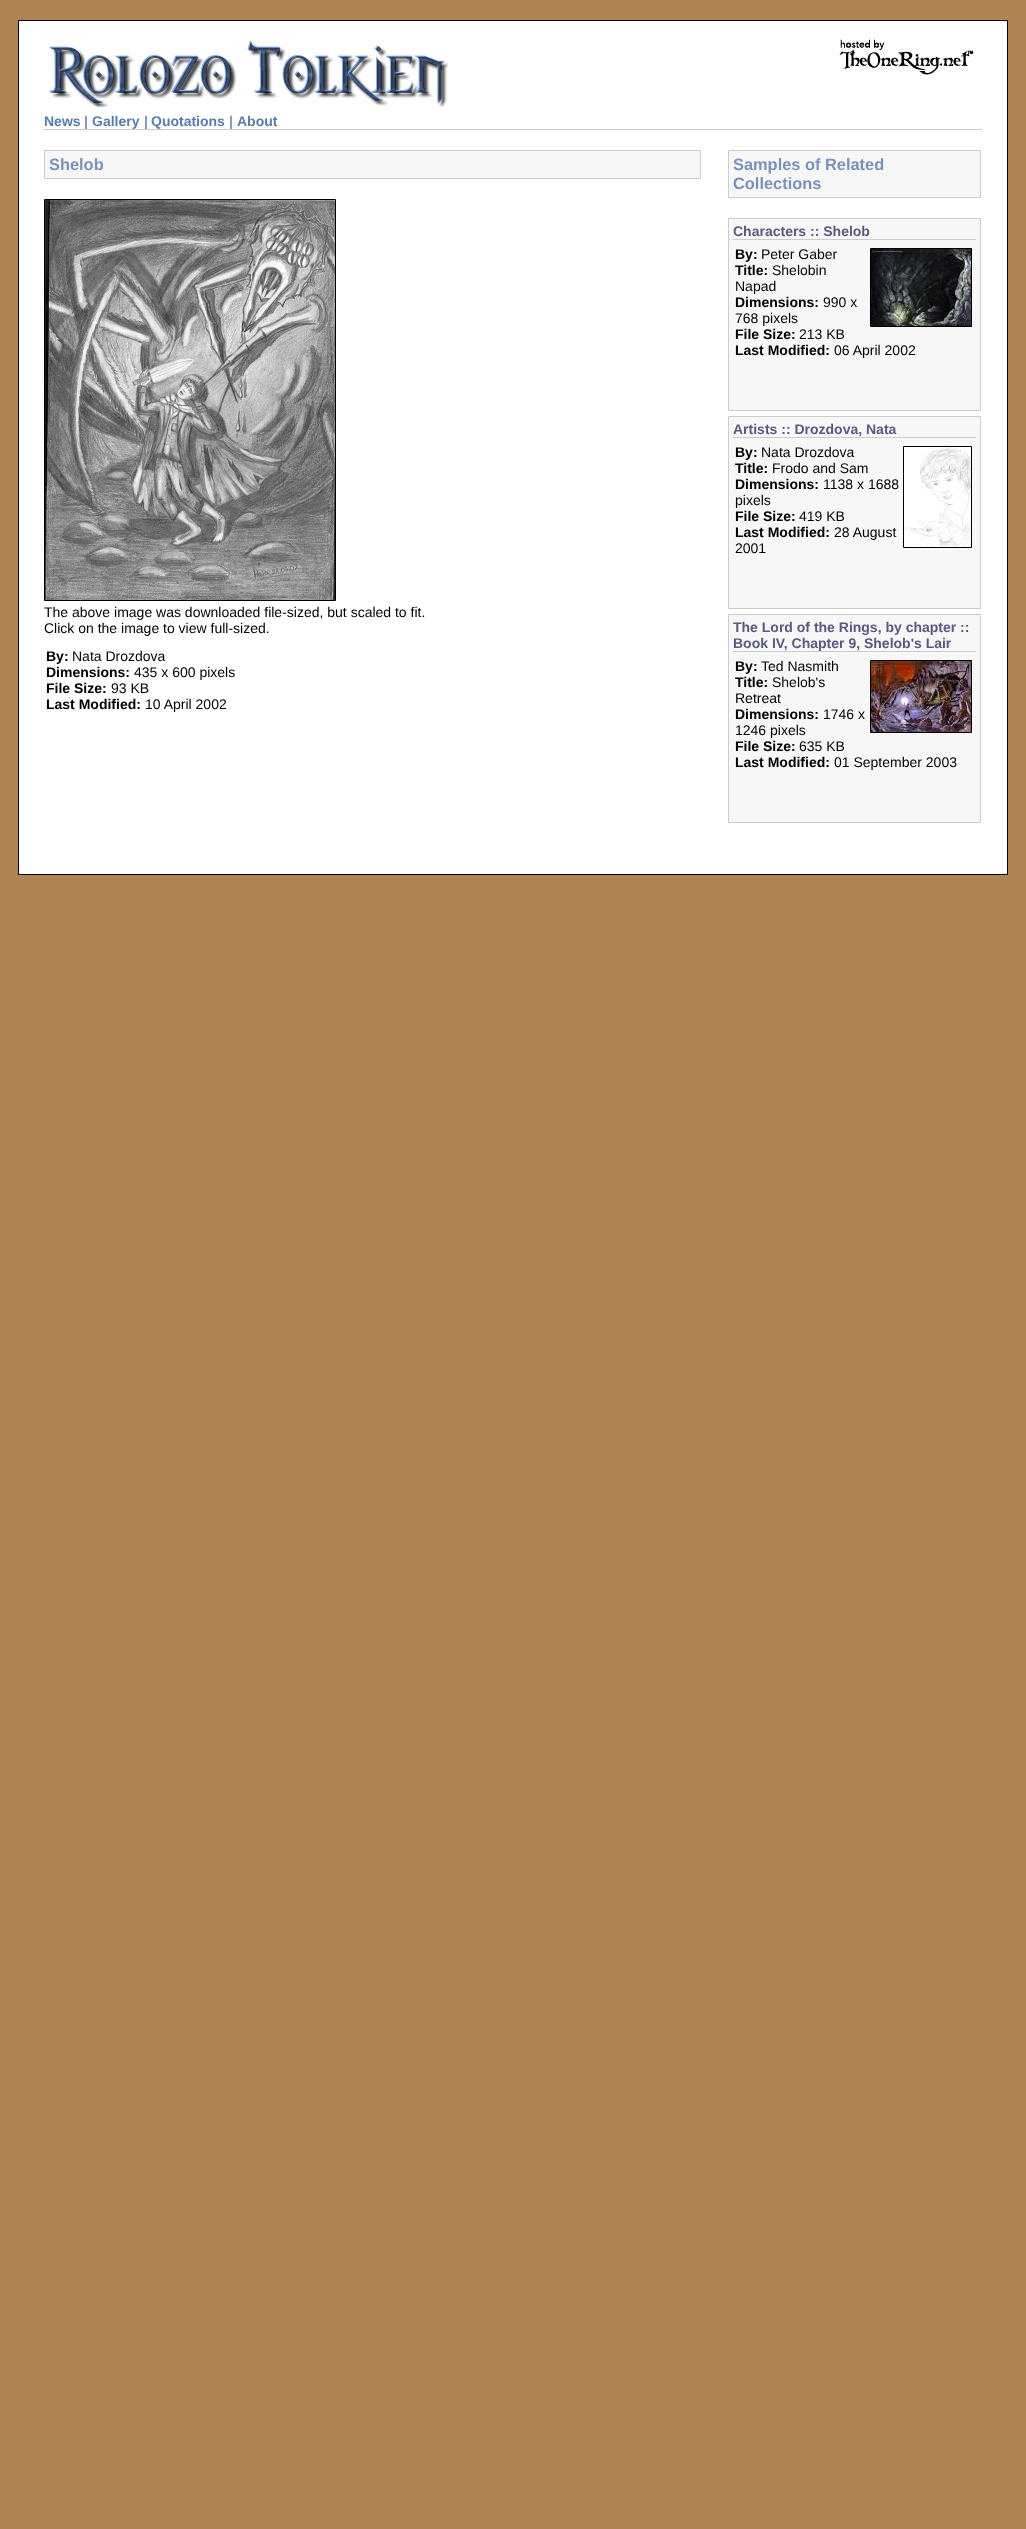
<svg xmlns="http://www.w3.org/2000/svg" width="1026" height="2529">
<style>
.a{font:bold 14px Liberation Sans;fill:#537eb0}
.b{font:bold 14px Liberation Sans;fill:#7792bc}
.c{font:bold 16.4px Liberation Sans;fill:#7792bc}
.d{font:14px Liberation Sans;fill:#000}
.e{font:bold 14px Liberation Sans;fill:#000}
.f{font:bold 14px Liberation Sans;fill:#595983}
</style>
<rect width="100%" height="100%" fill="#b08553"/>
<path fill="#fff" stroke="#000" d="M18.5 20.5h989v854H18.5z"/>
<image href="1.png" x="49" y="40" width="399" height="67"/>
<image href="2.png" x="839" y="39" width="134" height="36"/>
<path fill="#ccc" d="M44 129h938v1H44z"/>
<path fill="#f7f7f7" stroke="#ccc" d="M44.5 150.5h656v28H44.5z"/>
<path fill="none" stroke="#000" d="M44.5 199.5h291v401H44.5z"/>
<image href="3.png" x="45" y="200" width="290" height="400"/>
<path fill="#f7f7f7" stroke="#ccc" d="M728.5 150.5h252v47H728.5z"/>
<path fill="#f7f7f7" stroke="#ccc" d="M728.5 218.5h252v192H728.5z"/>
<path fill="#ccc" d="M733 239h243v1H733z"/>
<path fill="none" stroke="#000" d="M870.5 248.5h101v78H870.5z"/>
<image href="4.png" x="871" y="249" width="100" height="77"/>
<path fill="#f7f7f7" stroke="#ccc" d="M728.5 416.5h252v192H728.5z"/>
<path fill="#ccc" d="M733 437h243v1H733z"/>
<path fill="none" stroke="#000" d="M903.5 446.5h68v101H903.5z"/>
<image href="5.png" x="904" y="447" width="67" height="100"/>
<path fill="#f7f7f7" stroke="#ccc" d="M728.5 614.5h252v208H728.5z"/>
<path fill="#ccc" d="M733 651h243v1H733z"/>
<path fill="none" stroke="#000" d="M870.5 660.5h101v72H870.5z"/>
<image href="6.png" x="871" y="661" width="100" height="71"/>
<text class="a" x="44" y="126">News</text>
<text class="b" x="84" y="126">|</text>
<text class="a" x="92" y="126">Gallery</text>
<text class="b" x="144" y="126">|</text>
<text class="a" x="151" y="126">Quotations</text>
<text class="b" x="229" y="126">|</text>
<text class="a" x="237" y="126">About</text>
<text class="c" x="49" y="170">Shelob</text>
<text class="d" x="44" y="617">The above image was downloaded file-sized, but scaled to fit.</text>
<text class="d" x="44" y="633">Click on the image to view full-sized.</text>
<text class="e" x="46" y="661">By:</text>
<text class="d" x="72" y="661">Nata Drozdova</text>
<text class="e" x="46" y="677">Dimensions:</text>
<text class="d" x="134" y="677">435 x 600 pixels</text>
<text class="e" x="46" y="693">File Size:</text>
<text class="d" x="111" y="693">93 KB</text>
<text class="e" x="46" y="709">Last Modified:</text>
<text class="d" x="145" y="709">10 April 2002</text>
<text class="c" x="733" y="170">Samples of Related</text>
<text class="c" x="733" y="189">Collections</text>
<text class="f" x="733" y="236">Characters :: Shelob</text>
<text class="e" x="735" y="259">By:</text>
<text class="d" x="761" y="259">Peter Gaber</text>
<text class="e" x="735" y="275">Title:</text>
<text class="d" x="772" y="275">Shelobin</text>
<text class="d" x="735" y="291">Napad</text>
<text class="e" x="735" y="307">Dimensions:</text>
<text class="d" x="823" y="307">990 x</text>
<text class="d" x="735" y="323">768 pixels</text>
<text class="e" x="735" y="339">File Size:</text>
<text class="d" x="799" y="339">213 KB</text>
<text class="e" x="735" y="355">Last Modified:</text>
<text class="d" x="834" y="355">06 April 2002</text>
<text class="f" x="733" y="434">Artists :: Drozdova, Nata</text>
<text class="e" x="735" y="457">By:</text>
<text class="d" x="761" y="457">Nata Drozdova</text>
<text class="e" x="735" y="473">Title:</text>
<text class="d" x="772" y="473">Frodo and Sam</text>
<text class="e" x="735" y="489">Dimensions:</text>
<text class="d" x="823" y="489">1138 x 1688</text>
<text class="d" x="735" y="505">pixels</text>
<text class="e" x="735" y="521">File Size:</text>
<text class="d" x="799" y="521">419 KB</text>
<text class="e" x="735" y="537">Last Modified:</text>
<text class="d" x="834" y="537">28 August</text>
<text class="d" x="735" y="553">2001</text>
<text class="f" x="733" y="632">The Lord of the Rings, by chapter ::</text>
<text class="f" x="733" y="648">Book IV, Chapter 9, Shelob's Lair</text>
<text class="e" x="735" y="671">By:</text>
<text class="d" x="761" y="671">Ted Nasmith</text>
<text class="e" x="735" y="687">Title:</text>
<text class="d" x="772" y="687">Shelob's</text>
<text class="d" x="735" y="703">Retreat</text>
<text class="e" x="735" y="719">Dimensions:</text>
<text class="d" x="823" y="719">1746 x</text>
<text class="d" x="735" y="735">1246 pixels</text>
<text class="e" x="735" y="751">File Size:</text>
<text class="d" x="799" y="751">635 KB</text>
<text class="e" x="735" y="767">Last Modified:</text>
<text class="d" x="834" y="767">01 September 2003</text>
</svg>
